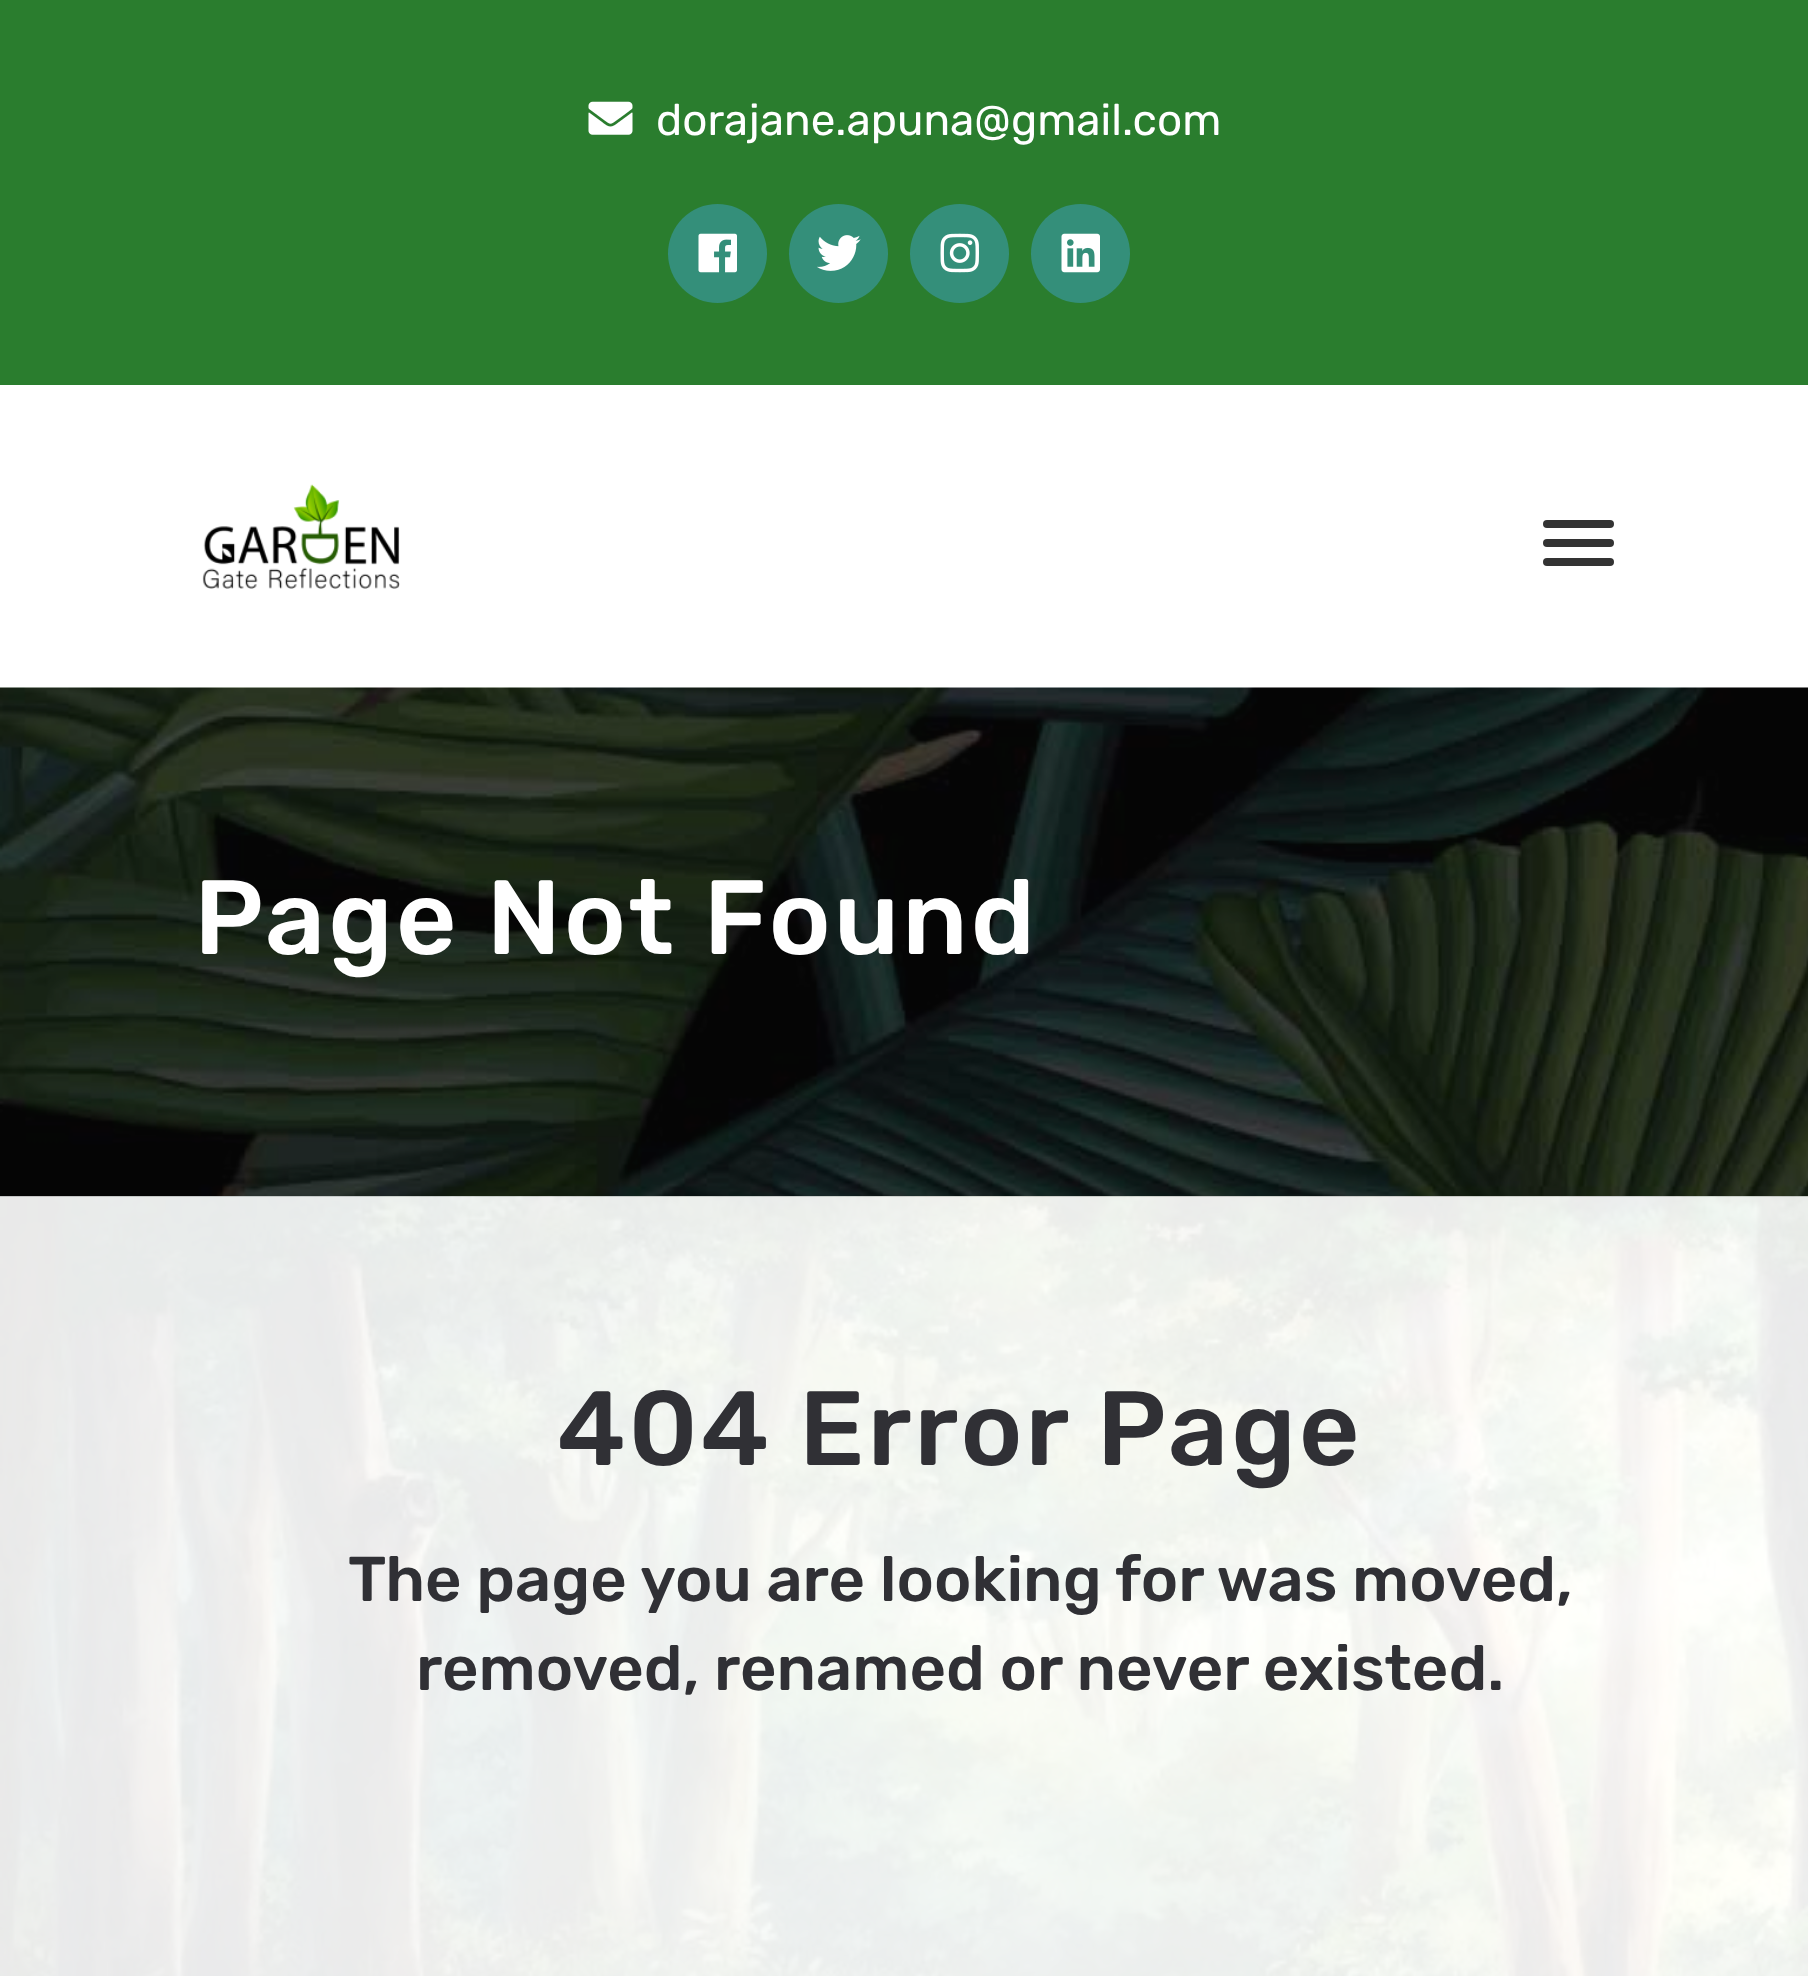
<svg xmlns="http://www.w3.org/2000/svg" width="1808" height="1976">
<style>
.a{font:44px Rubik;fill:#fff}
.b{font:500 105.5px Rubik;letter-spacing:2.75px;fill:#fff}
.c{font:500 105.5px Rubik;letter-spacing:2.75px;fill:#303035}
.d{font:500 63.4px Rubik;fill:#303035}
</style>
<rect width="100%" height="100%" fill="#fff"/>
<path fill="#2a7d2e" d="M0 0h1808v385H0z"/>
<image href="1.png" x="588" y="101" width="45" height="34"/>
<circle fill="#348f7a" cx="717.5" cy="253.5" r="49.5"/>
<image href="2.png" x="698" y="233" width="39" height="40"/>
<circle fill="#348f7a" cx="838.5" cy="253.5" r="49.5"/>
<image href="3.png" x="817" y="235" width="44" height="36"/>
<circle fill="#348f7a" cx="959.5" cy="253.5" r="49.5"/>
<image href="4.png" x="940" y="233" width="39" height="40"/>
<circle fill="#348f7a" cx="1080.5" cy="253.5" r="49.5"/>
<image href="5.png" x="1061" y="233" width="39" height="40"/>
<image href="6.png" x="202" y="484" width="198" height="105"/>
<rect fill="#333" x="1543" y="520" width="71" height="8" rx="4"/>
<rect fill="#333" x="1543" y="539" width="71" height="8" rx="4"/>
<rect fill="#333" x="1543" y="558" width="71" height="8" rx="4"/>
<image href="7.png" x="0" y="687" width="1808" height="510"/>
<image href="8.png" x="0" y="1196" width="1808" height="780"/>
<text class="a" x="656" y="135">dorajane.apuna@gmail.com</text>
<text class="b" x="194" y="954">Page Not Found</text>
<text class="c" x="557" y="1465">404 Error Page</text>
<text class="d" x="348" y="1601">The page you are looking for was moved,</text>
<text class="d" x="416" y="1690">removed, renamed or never existed.</text>
</svg>
